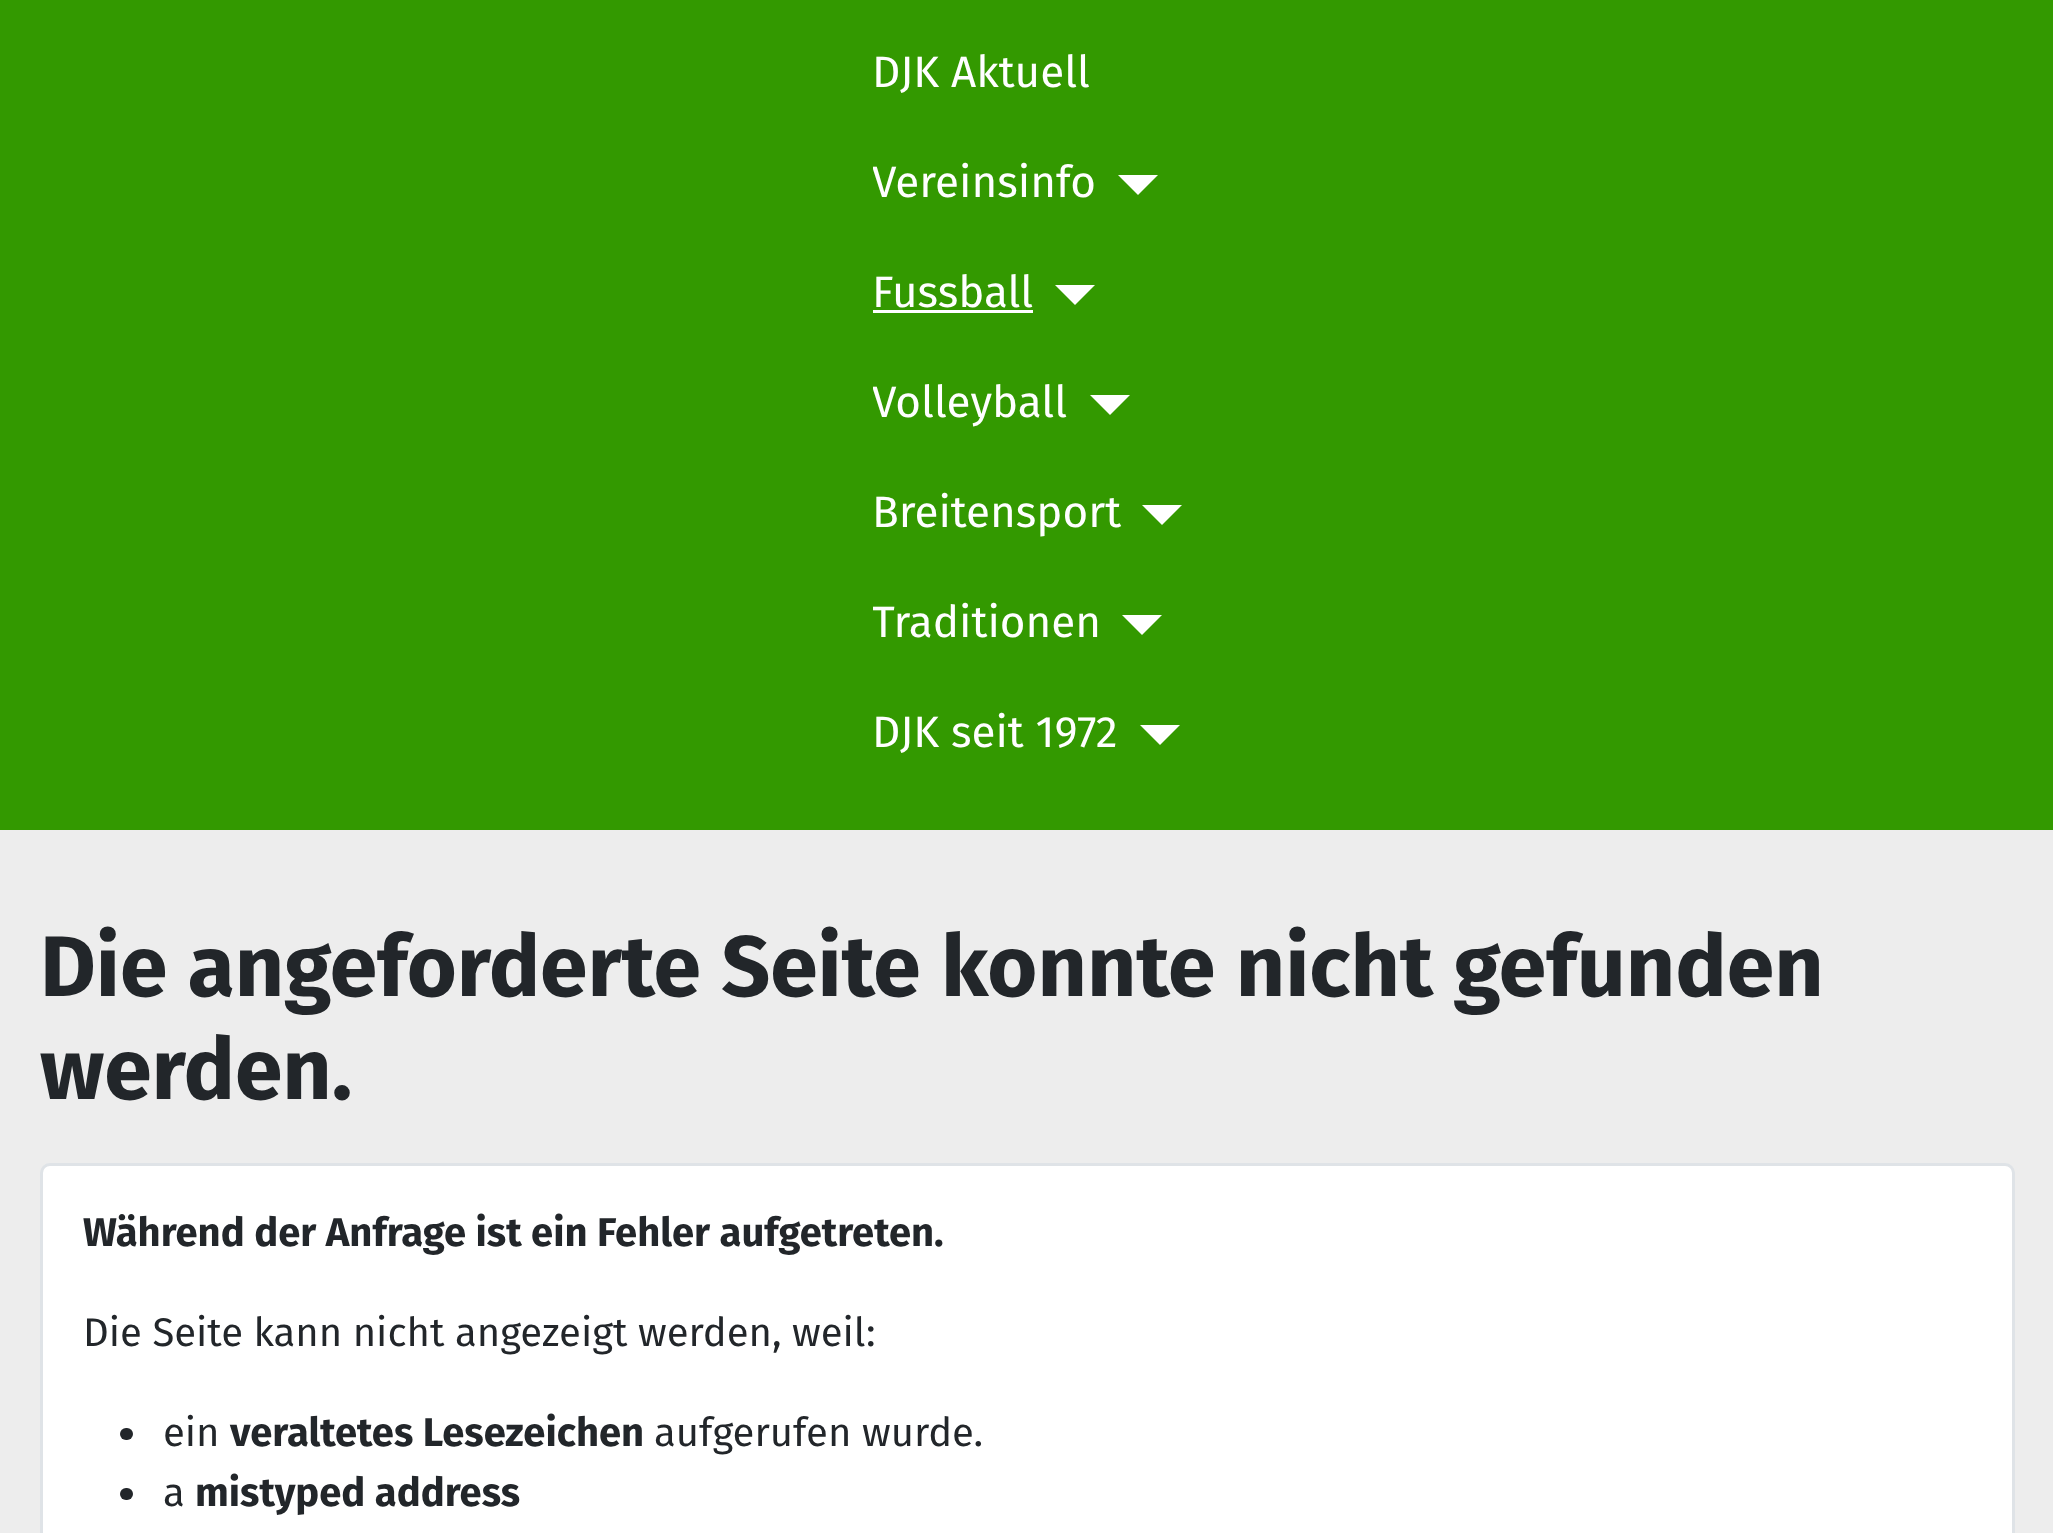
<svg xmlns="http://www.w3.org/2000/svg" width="2053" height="1533">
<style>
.a{font:44px Fira Sans;fill:#fff}
.b{font:bold 85.8px Fira Sans;fill:#22262a}
.c{font:bold 40px Fira Sans;fill:#22262a}
.d{font:40px Fira Sans;fill:#22262a}
</style>
<defs>
<clipPath id="clip1"><path d="M873 153h285v65H873z"/></clipPath>
<clipPath id="clip2"><path d="M873 373h257v65H873z"/></clipPath>
<clipPath id="clip3"><path d="M873 593h290v65H873z"/></clipPath>
</defs>
<rect width="100%" height="100%" fill="#ededed"/>
<path fill="#390" d="M0 0h2053v830H0z"/>
<path fill="#fff" d="M1118 175h40l-20 20z"/>
<path fill="#fff" d="M873 310h160v3H873z"/>
<path fill="#fff" d="M1055 285h40l-20 20z"/>
<path fill="#fff" d="M1090 395h40l-20 20z"/>
<path fill="#fff" d="M1142 505h40l-20 20z"/>
<path fill="#fff" d="M1122 615h40l-20 20z"/>
<path fill="#fff" d="M1140 725h40l-20 20z"/>
<rect fill="#fff" stroke="#dfe3e7" stroke-width="3" x="41.5" y="1164.5" width="1972" height="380" rx="8.5"/>
<rect fill="#22262a" x="120" y="1428" width="13" height="12" rx="6"/>
<rect fill="#22262a" x="120" y="1488" width="13" height="12" rx="6"/>
<text class="a" x="872" y="87">DJK Aktuell</text>
<g clip-path="url(#clip1)">
<text class="a" x="872" y="197">Vereinsinfo</text>
</g>
<text class="a" x="872" y="307">Fussball</text>
<g clip-path="url(#clip2)">
<text class="a" x="872" y="417">Volleyball</text>
</g>
<text class="a" x="872" y="527">Breitensport</text>
<g clip-path="url(#clip3)">
<text class="a" x="872" y="637">Traditionen</text>
</g>
<text class="a" x="872" y="747">DJK seit 1972</text>
<text class="b" x="40" y="996">Die angeforderte Seite konnte nicht gefunden</text>
<text class="b" x="40" y="1099">werden.</text>
<text class="c" x="83" y="1246">Während der Anfrage ist ein Fehler aufgetreten.</text>
<text class="d" x="83" y="1346">Die Seite kann nicht angezeigt werden, weil:</text>
<text class="d" x="163" y="1446">ein</text>
<text class="c" x="230" y="1446">veraltetes Lesezeichen</text>
<text class="d" x="654" y="1446">aufgerufen wurde.</text>
<text class="d" x="163" y="1506">a</text>
<text class="c" x="195" y="1506">mistyped address</text>
</svg>
